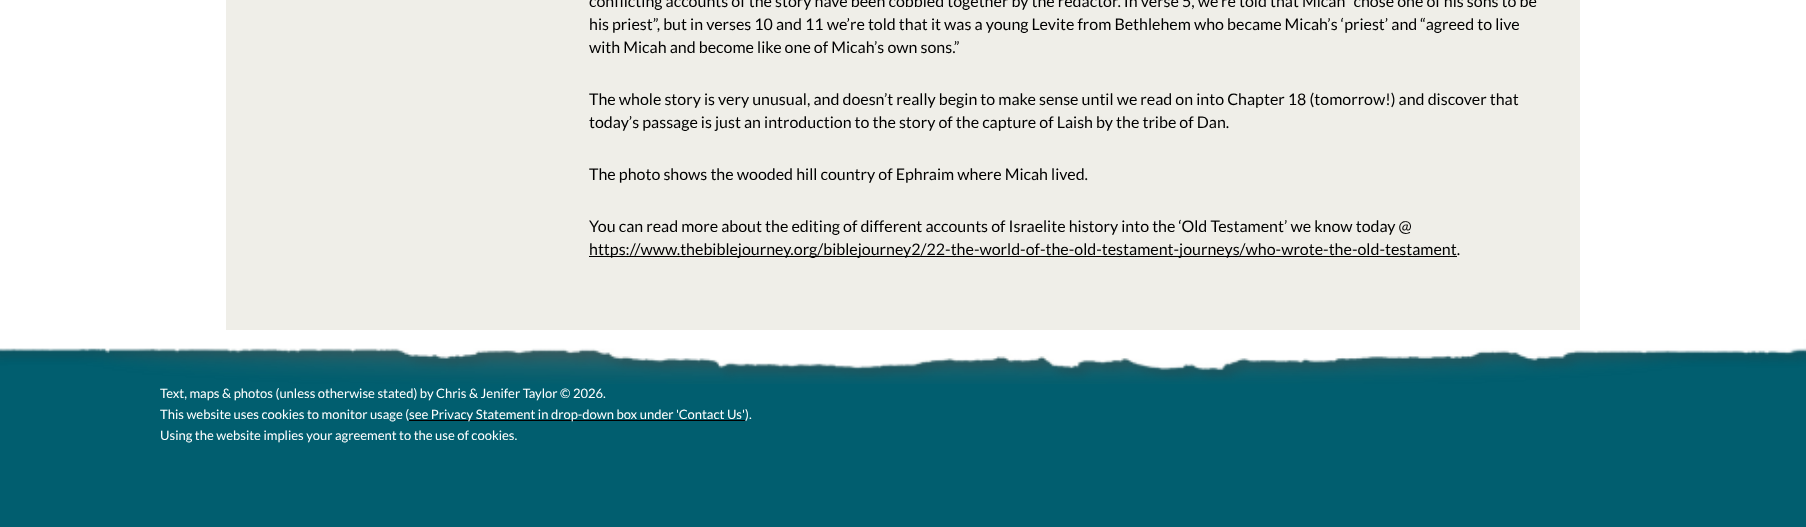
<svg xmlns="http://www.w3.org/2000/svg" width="1806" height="527">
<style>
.a{font:16px Lato;fill:#000}
.b{font:13px Lato;fill:#fff}
</style>
<rect width="100%" height="100%" fill="#fff"/>
<path fill="#efeee8" d="M226 0h1354v330H226z"/>
<path fill="#000" d="M589 256h868v1H589z"/>
<path fill="#015e6f" d="M0 339h1806v188H0z"/>
<image href="1.png" x="0" y="330" width="1806" height="54"/>
<path fill="#000" d="M409 420h336v1H409z"/>
<text class="a" x="589" y="7">conflicting accounts of the story have been cobbled together by the redactor. In verse 5, we’re told that Micah “chose one of his sons to be</text>
<text class="a" x="589" y="30">his priest”, but in verses 10 and 11 we’re told that it was a young Levite from Bethlehem who became Micah’s ‘priest’ and “agreed to live</text>
<text class="a" x="589" y="53">with Micah and become like one of Micah’s own sons.”</text>
<text class="a" x="589" y="105">The whole story is very unusual, and doesn’t really begin to make sense until we read on into Chapter 18 (tomorrow!) and discover that</text>
<text class="a" x="589" y="128">today’s passage is just an introduction to the story of the capture of Laish by the tribe of Dan.</text>
<text class="a" x="589" y="180">The photo shows the wooded hill country of Ephraim where Micah lived.</text>
<text class="a" x="589" y="232">You can read more about the editing of different accounts of Israelite history into the ‘Old Testament’ we know today @</text>
<text class="a" x="589" y="255">https://www.thebiblejourney.org/biblejourney2/22-the-world-of-the-old-testament-journeys/who-wrote-the-old-testament.</text>
<text class="b" x="160" y="398">Text, maps &amp; photos (unless otherwise stated) by Chris &amp; Jenifer Taylor © 2026.</text>
<text class="b" x="160" y="419">This website uses cookies to monitor usage (</text>
<text class="b" x="409" y="419">see Privacy Statement in drop-down box under 'Contact Us').</text>
<text class="b" x="160" y="440">Using the website implies your agreement to the use of cookies.</text>
</svg>
